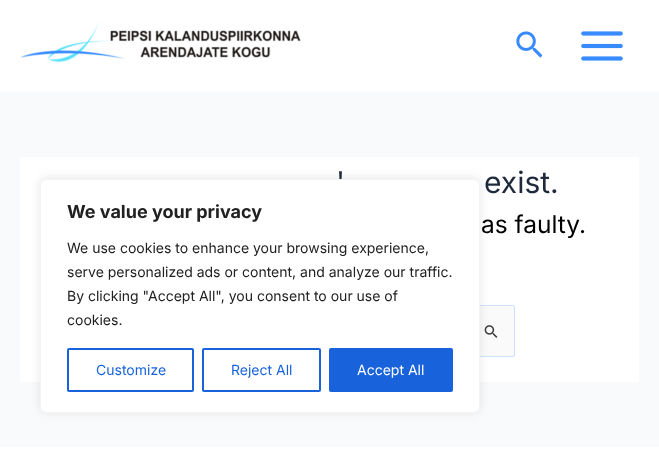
<svg xmlns="http://www.w3.org/2000/svg" width="659" height="453">
<style>
.a{font:30px Inter;fill:#1e293b}
.b{font:14px Inter;fill:#fff}
.c{font:14px Inter;fill:#1863dc}
.d{font:14px Inter;fill:#212121}
.e{font:bold 18px Inter;fill:#212121}
.f{font:24.5px Inter;fill:#000}
</style>
<rect width="100%" height="100%" fill="#f9fafb"/>
<path fill="#fff" d="M20 157h619v225H20z"/>
<rect fill="#fafafa" stroke="#cce1ff" x="145.5" y="305.5" width="369" height="51" rx="1.5"/>
<image href="4.png" x="484" y="325" width="14" height="13"/>
<rect fill="#acabab4d" filter="blur(5px)" x="40" y="178" width="440" height="234" rx="6"/>
<path fill="#fff" d="M0 0h659v92H0z"/>
<image href="1.png" x="20" y="21" width="281" height="42"/>
<image href="2.png" x="516" y="31" width="26" height="27"/>
<image href="3.png" x="581" y="31" width="42" height="30"/>
<path fill="#fff" d="M0 447h659v6H0z"/>
<text class="a" x="336" y="193">'</text>
<rect fill="#fff" stroke="#f4f4f4" x="40.5" y="179.5" width="439" height="233" rx="5.5"/>
<rect fill="#1863dc" stroke="#1863dc" stroke-width="2" x="330" y="349" width="122" height="42" rx="1"/>
<text class="b" x="357" y="375">Accept All</text>
<rect fill="none" stroke="#1863dc" stroke-width="2" x="203" y="349" width="117" height="42" rx="1"/>
<text class="c" x="231" y="375">Reject All</text>
<rect fill="none" stroke="#1863dc" stroke-width="2" x="68" y="349" width="125" height="42" rx="1"/>
<text class="c" x="96" y="375">Customize</text>
<text class="d" x="67" y="325">cookies.</text>
<text class="d" x="67" y="301">By clicking "Accept All", you consent to our use of</text>
<text class="d" x="67" y="277">serve personalized ads or content, and analyze our traffic.</text>
<text class="d" x="67" y="253">We use cookies to enhance your browsing experience,</text>
<text class="e" x="67" y="218">We value your privacy</text>
<text class="a" x="484" y="193">exist.</text>
<text class="f" x="481" y="233">as faulty.</text>
</svg>
